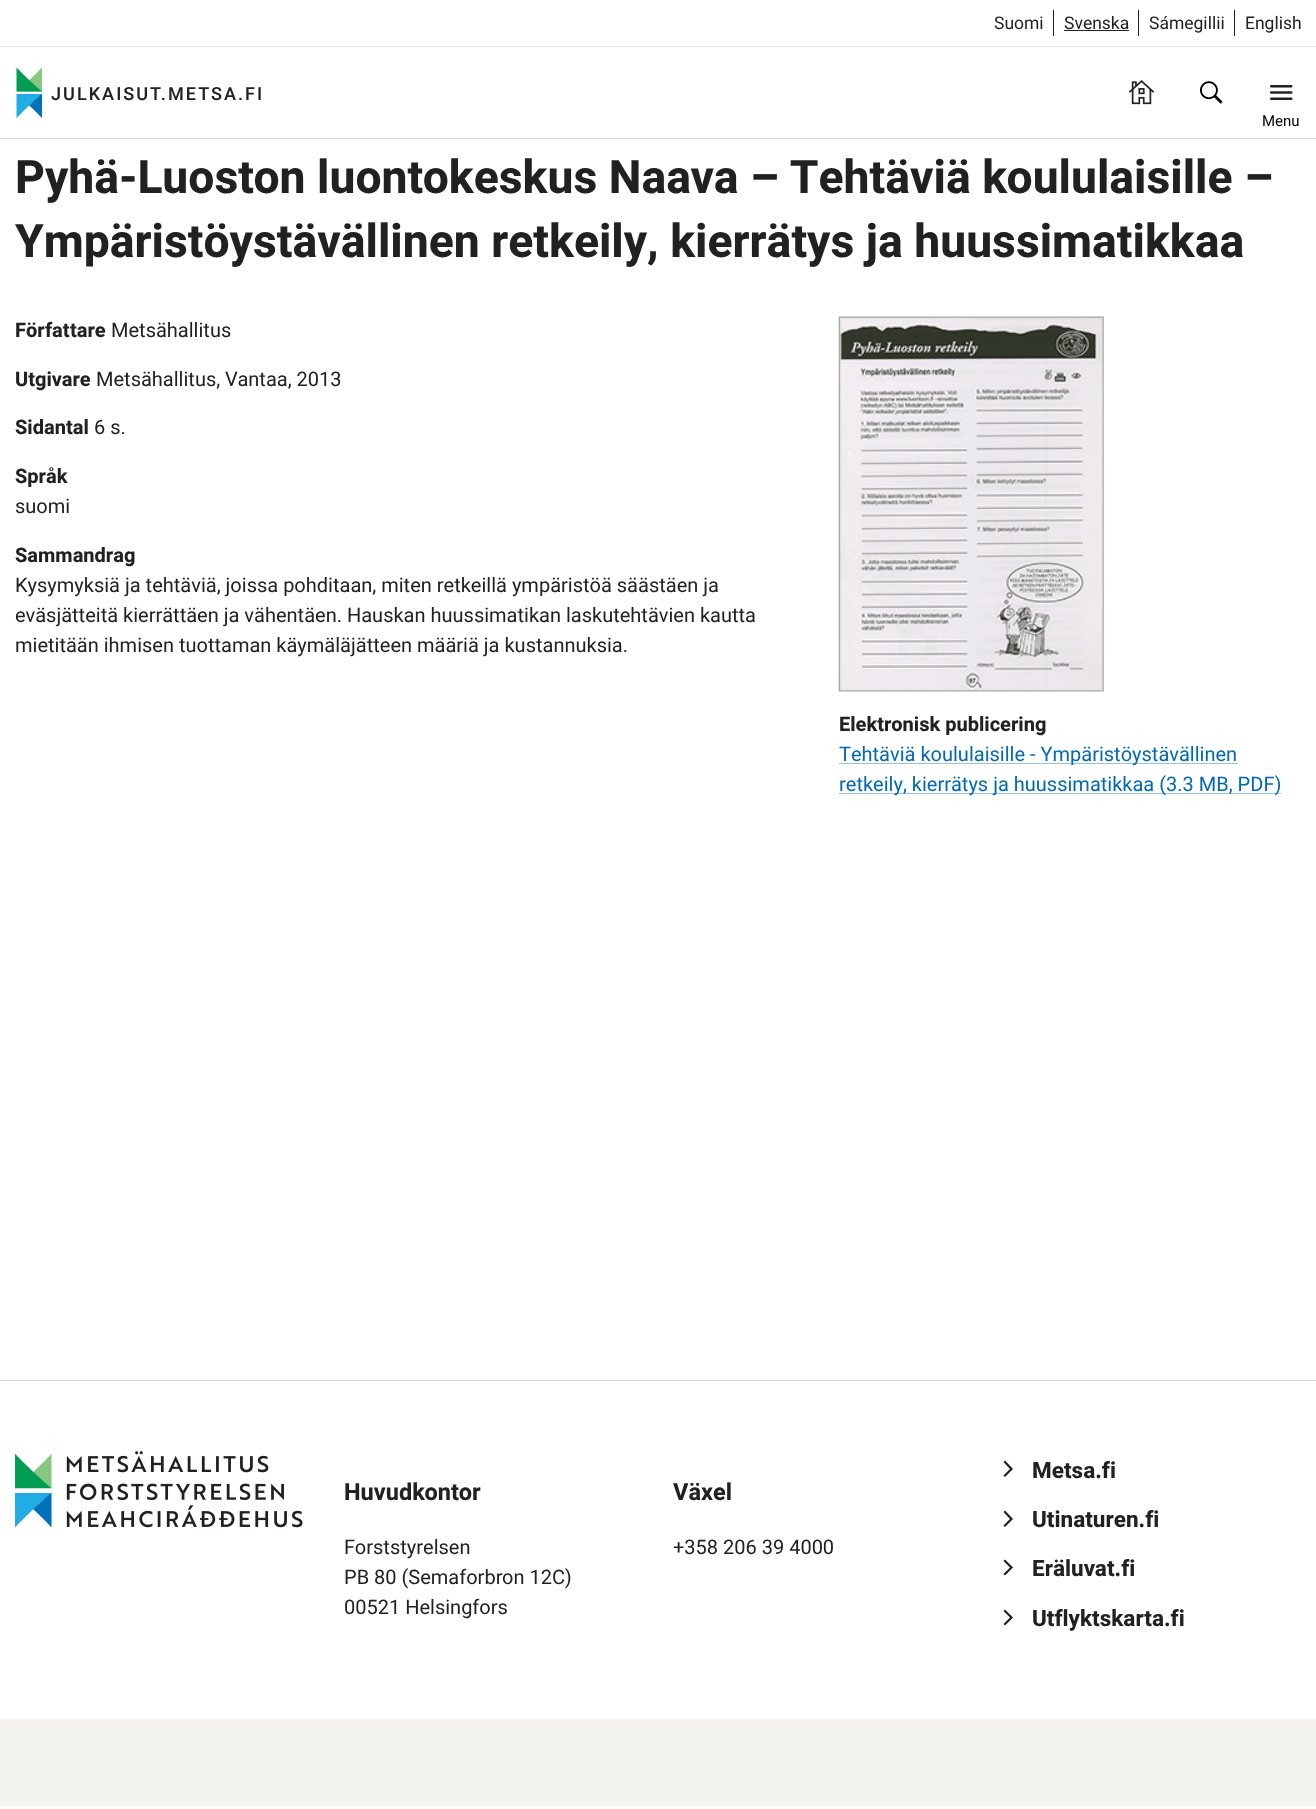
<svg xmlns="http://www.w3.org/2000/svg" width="1316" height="1809">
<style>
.a{font:17.5px Heebo;fill:#212121}
.b{font:500 18.1px Heebo;letter-spacing:2px;fill:#212121}
.c{font:15px Heebo;fill:#000}
.d{font:bold 46.25px Heebo;fill:#212121}
.e{font:bold 20px Heebo;fill:#212121}
.f{font:20px Heebo;fill:#212121}
.g{font:20px Heebo;fill:#0069b3}
.h{font:bold 23.5px Heebo;fill:#212121}
.i{font:bold 22.5px Heebo;fill:#212121}
</style>
<rect width="100%" height="100%" fill="#fff"/>
<path fill="#d8d8d8" d="M0 138h1316v1H0z"/>
<path fill="#efece7" d="M0 46h1316v1H0z"/>
<path fill="#212121" d="M1053 10h1v26H1053z"/>
<path fill="#212121" d="M1064 30h65v1H1064z"/>
<path fill="#212121" d="M1138 10h1v26H1138z"/>
<path fill="#212121" d="M1234 10h1v26H1234z"/>
<image href="1.png" x="16" y="67" width="26" height="51"/>
<image href="2.png" x="1128" y="80" width="27" height="25"/>
<image href="3.png" x="1200" y="81" width="23" height="23"/>
<image href="4.png" x="1270" y="85" width="23" height="15"/>
<image href="5.png" x="838" y="316" width="266" height="376"/>
<path fill="#99c3e1" d="M839 763h399v1H839z"/>
<path fill="#99c3e1" d="M839 793h442v1H839z"/>
<path fill="#d8d8d8" d="M0 1380h1316v1H0z"/>
<image href="6.png" x="15" y="1451" width="288" height="77"/>
<path fill="none" stroke="#212121" stroke-width="2.2" stroke-linecap="square" d="M1005 1475.5l6.5-6.5l-6.5-7"/>
<path fill="none" stroke="#212121" stroke-width="2.2" stroke-linecap="square" d="M1005 1525.5l6.5-6.5l-6.5-7"/>
<path fill="none" stroke="#212121" stroke-width="2.2" stroke-linecap="square" d="M1005 1574l6.5-6.5l-6.5-6.5"/>
<path fill="none" stroke="#212121" stroke-width="2.2" stroke-linecap="square" d="M1005 1624l6.5-6.5l-6.5-6.5"/>
<path fill="#f4f2ef" d="M0 1719h1316v87H0z"/>
<text class="a" x="994" y="29">Suomi</text>
<text class="a" x="1064" y="29">Svenska</text>
<text class="a" x="1149" y="29">Sámegillii</text>
<text class="a" x="1245" y="29">English</text>
<text class="b" x="51" y="100">JULKAISUT.METSA.FI</text>
<text class="c" x="1262" y="126">Menu</text>
<text class="d" x="15" y="193">Pyhä-Luoston luontokeskus Naava – Tehtäviä koululaisille –</text>
<text class="d" x="15" y="257">Ympäristöystävällinen retkeily, kierrätys ja huussimatikkaa</text>
<text class="e" x="15" y="337">Författare</text>
<text class="f" x="111" y="337">Metsähallitus</text>
<text class="e" x="15" y="386">Utgivare</text>
<text class="f" x="96" y="386">Metsähallitus, Vantaa, 2013</text>
<text class="e" x="15" y="434">Sidantal</text>
<text class="f" x="94" y="434">6 s.</text>
<text class="e" x="15" y="483">Språk</text>
<text class="f" x="15" y="513">suomi</text>
<text class="e" x="15" y="562">Sammandrag</text>
<text class="f" x="15" y="592">Kysymyksiä ja tehtäviä, joissa pohditaan, miten retkeillä ympäristöä säästäen ja</text>
<text class="f" x="15" y="622">eväsjätteitä kierrättäen ja vähentäen. Hauskan huussimatikan laskutehtävien kautta</text>
<text class="f" x="15" y="652">mietitään ihmisen tuottaman käymäläjätteen määriä ja kustannuksia.</text>
<text class="e" x="839" y="731">Elektronisk publicering</text>
<text class="g" x="839" y="761">Tehtäviä koululaisille - Ympäristöystävällinen</text>
<text class="g" x="839" y="791">retkeily, kierrätys ja huussimatikkaa (3.3 MB, PDF)</text>
<text class="h" x="344" y="1500">Huvudkontor</text>
<text class="f" x="344" y="1554">Forststyrelsen</text>
<text class="f" x="344" y="1584">PB 80 (Semaforbron 12C)</text>
<text class="f" x="344" y="1614">00521 Helsingfors</text>
<text class="h" x="673" y="1500">Växel</text>
<text class="f" x="673" y="1554">+358 206 39 4000</text>
<text class="i" x="1032" y="1478">Metsa.fi</text>
<text class="i" x="1032" y="1527">Utinaturen.fi</text>
<text class="i" x="1032" y="1576">Eräluvat.fi</text>
<text class="i" x="1032" y="1626">Utflyktskarta.fi</text>
</svg>
